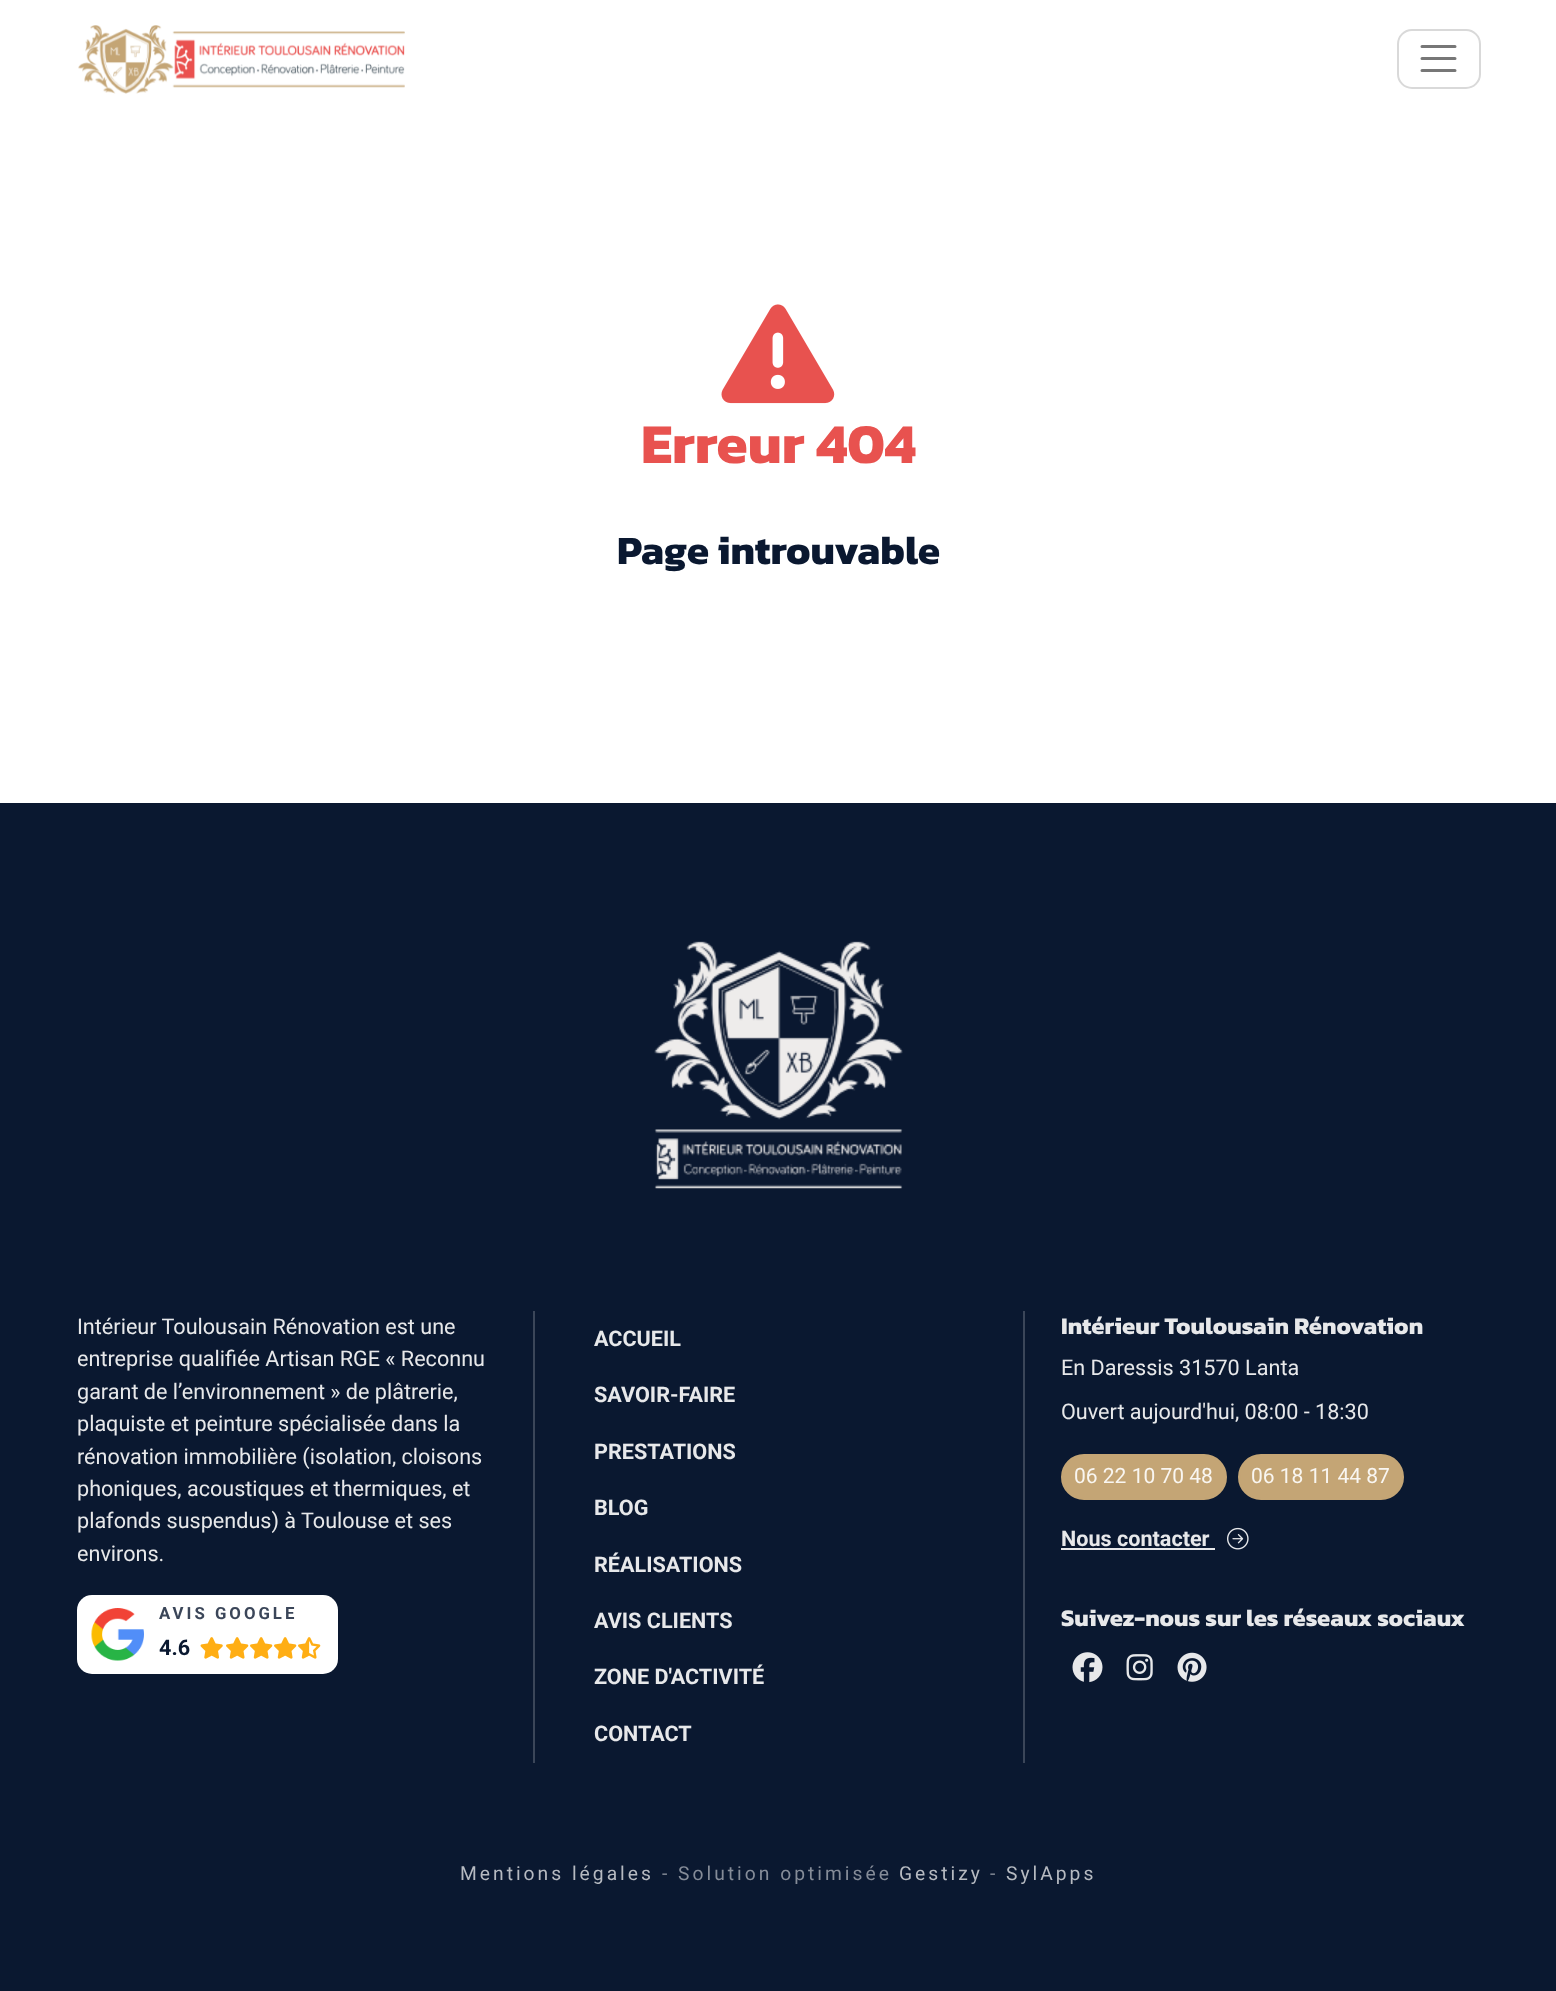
<svg xmlns="http://www.w3.org/2000/svg" width="1556" height="1991">
<style>
.a{font:bold 56.5px Kanit;fill:#e8524f}
.b{font:bold 40.5px Kanit;fill:#0a1830}
.c{font:21.6px Roboto;fill:#e7e8ea}
.d{font:bold 16.75px Roboto;letter-spacing:3px;fill:#3b4659}
.e{font:bold 21.6px Roboto;fill:#0a1830}
.f{font:bold 21.6px Roboto;fill:#e7e8ea}
.g{font:bold 24px Kanit;fill:#e7e8ea}
.h{font:21px Roboto;fill:#f9f6f1}
.i{font:19.25px Roboto;letter-spacing:3px;fill:#b6bac1}
.j{font:19.25px Roboto;letter-spacing:3px;fill:#858c98}
</style>
<rect width="100%" height="100%" fill="#fff"/>
<image href="1.png" x="78" y="25" width="327" height="69"/>
<rect fill="none" stroke="#d9d9d9" stroke-width="2" x="1398" y="30" width="82" height="58" rx="14"/>
<path fill="none" stroke="#777" stroke-width="3" stroke-linecap="round" d="M1422 46.5h33m-33 12h33m-33 12h33"/>
<image href="2.png" x="721" y="304" width="114" height="100"/>
<path fill="#0a1830" d="M0 803h1556v1188H0z"/>
<image href="3.png" x="654" y="941" width="249" height="248"/>
<rect fill="#fff" x="77" y="1595" width="261" height="79" rx="15"/>
<image href="4.png" x="91" y="1608" width="53" height="53"/>
<image href="5.png" x="200" y="1637" width="23" height="22"/>
<image href="6.png" x="226" y="1637" width="23" height="22"/>
<image href="6.png" x="250" y="1637" width="23" height="22"/>
<image href="6.png" x="274" y="1637" width="23" height="22"/>
<image href="7.png" x="298" y="1637" width="23" height="22"/>
<path fill="#3b4659" d="M1023 1311h2v452H1023z"/>
<path fill="#3b4659" d="M533 1311h2v452H533z"/>
<rect fill="#c4a575" stroke="#c4a575" stroke-width="2" x="1062" y="1455" width="164" height="44" rx="22"/>
<rect fill="#c4a575" stroke="#c4a575" stroke-width="2" x="1239" y="1455" width="164" height="44" rx="22"/>
<path fill="#e7e8ea" d="M1061 1548h154v2H1061z"/>
<image href="8.png" x="1227" y="1527" width="22" height="23"/>
<image href="9.png" x="1072" y="1652" width="31" height="31"/>
<image href="10.png" x="1126" y="1654" width="27" height="27"/>
<image href="11.png" x="1177" y="1652" width="30" height="30"/>
<text class="a" x="641" y="463">Erreur 404</text>
<text class="b" x="617" y="564">Page introuvable</text>
<text class="c" x="77" y="1334">Intérieur Toulousain Rénovation est une</text>
<text class="c" x="77" y="1366">entreprise qualifiée Artisan RGE « Reconnu</text>
<text class="c" x="77" y="1399">garant de l’environnement » de plâtrerie,</text>
<text class="c" x="77" y="1431">plaquiste et peinture spécialisée dans la</text>
<text class="c" x="77" y="1464">rénovation immobilière (isolation, cloisons</text>
<text class="c" x="77" y="1496">phoniques, acoustiques et thermiques, et</text>
<text class="c" x="77" y="1528">plafonds suspendus) à Toulouse et ses</text>
<text class="c" x="77" y="1561">environs.</text>
<text class="d" x="159" y="1619">AVIS GOOGLE</text>
<text class="e" x="159" y="1655">4.6</text>
<text class="f" x="594" y="1346">ACCUEIL</text>
<text class="f" x="594" y="1402">SAVOIR-FAIRE</text>
<text class="f" x="594" y="1459">PRESTATIONS</text>
<text class="f" x="594" y="1515">BLOG</text>
<text class="f" x="594" y="1572">RÉALISATIONS</text>
<text class="f" x="594" y="1628">AVIS CLIENTS</text>
<text class="f" x="594" y="1684">ZONE D'ACTIVITÉ</text>
<text class="f" x="594" y="1741">CONTACT</text>
<text class="g" x="1061" y="1334">Intérieur Toulousain Rénovation</text>
<text class="c" x="1061" y="1375">En Daressis 31570 Lanta</text>
<text class="c" x="1061" y="1419">Ouvert aujourd'hui, 08:00 - 18:30</text>
<text class="h" x="1074" y="1483">06 22 10 70 48</text>
<text class="h" x="1251" y="1483">06 18 11 44 87</text>
<text class="f" x="1061" y="1546">Nous contacter</text>
<text class="g" x="1061" y="1626">Suivez-nous sur les réseaux sociaux</text>
<text class="i" x="460" y="1880">Mentions légales</text>
<text class="j" x="662" y="1880">- Solution optimisée</text>
<text class="i" x="899" y="1880">Gestizy</text>
<text class="j" x="990" y="1880">-</text>
<text class="i" x="1006" y="1880">SylApps</text>
</svg>
